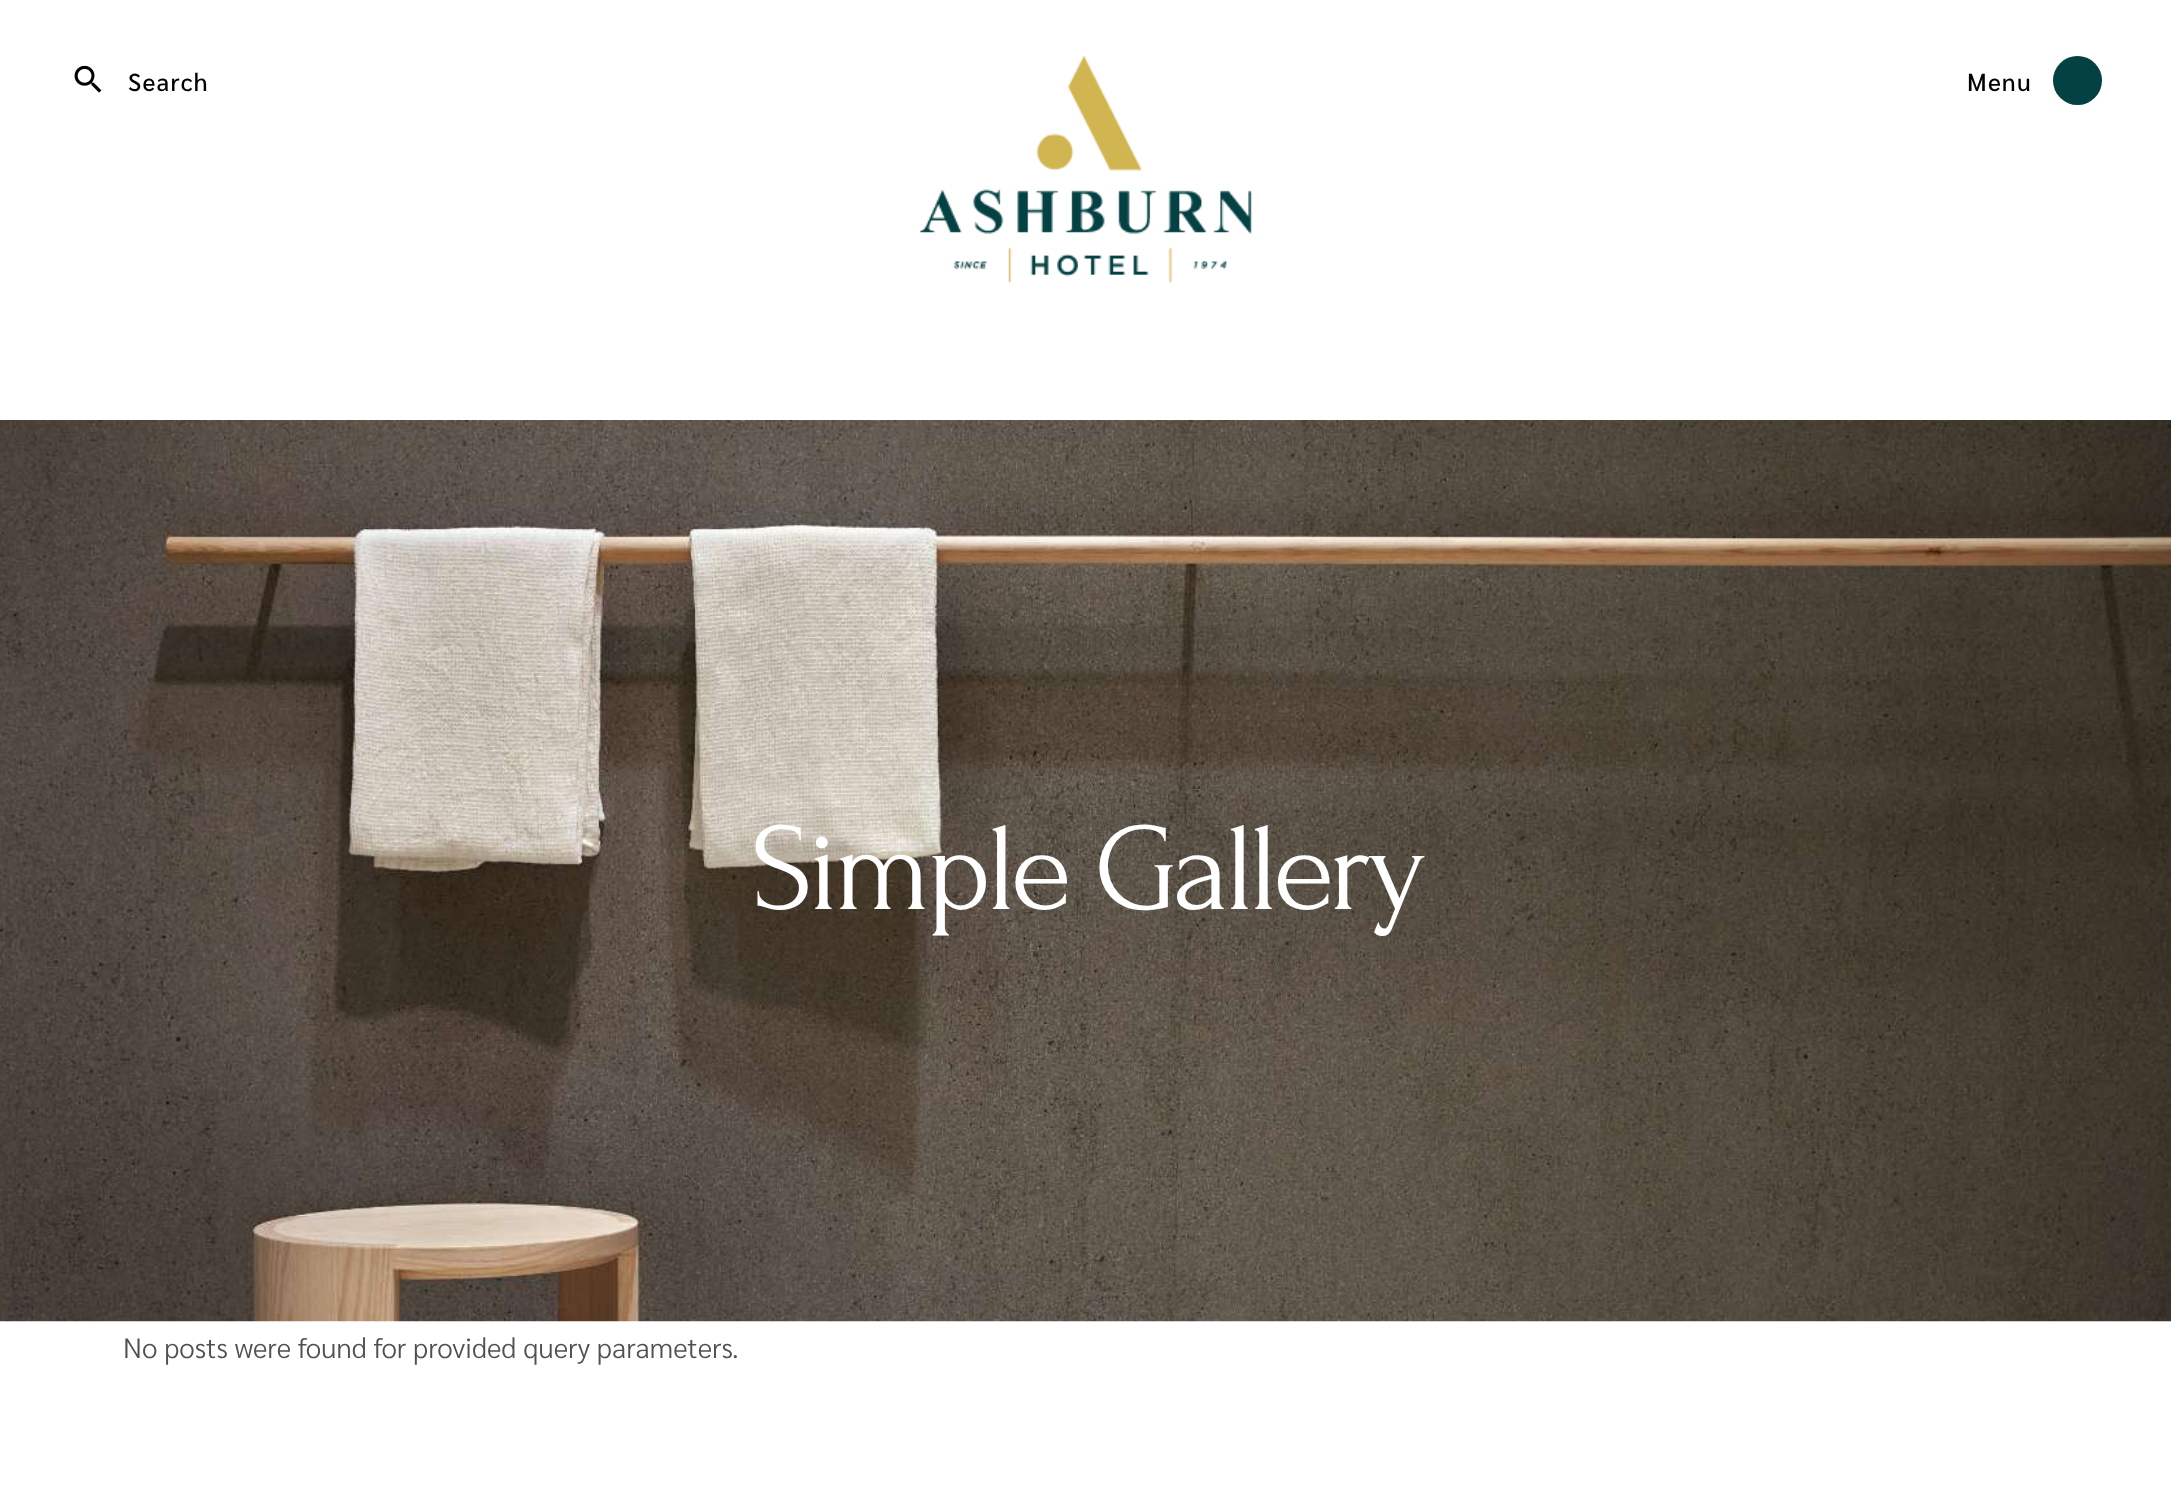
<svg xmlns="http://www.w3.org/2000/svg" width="2171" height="1489">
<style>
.a{font:500 24.5px Sarabun;letter-spacing:1.25px;fill:#000}
.b{font:126px Forum;letter-spacing:-5px;fill:#fff}
.c{font:300 28px Sarabun;fill:#505050}
</style>
<rect width="100%" height="100%" fill="#fff"/>
<image href="1.png" x="74" y="65" width="28" height="28"/>
<image href="2.png" x="920" y="56" width="332" height="228"/>
<circle fill="#044143" cx="2077.5" cy="80.5" r="24.5"/>
<image href="3.png" x="0" y="420" width="2171" height="902"/>
<text class="a" x="128" y="91">Search</text>
<text class="a" x="1967" y="91">Menu</text>
<text class="b" x="751" y="909">Simple Gallery</text>
<text class="c" x="123" y="1358">No posts were found for provided query parameters.</text>
</svg>
